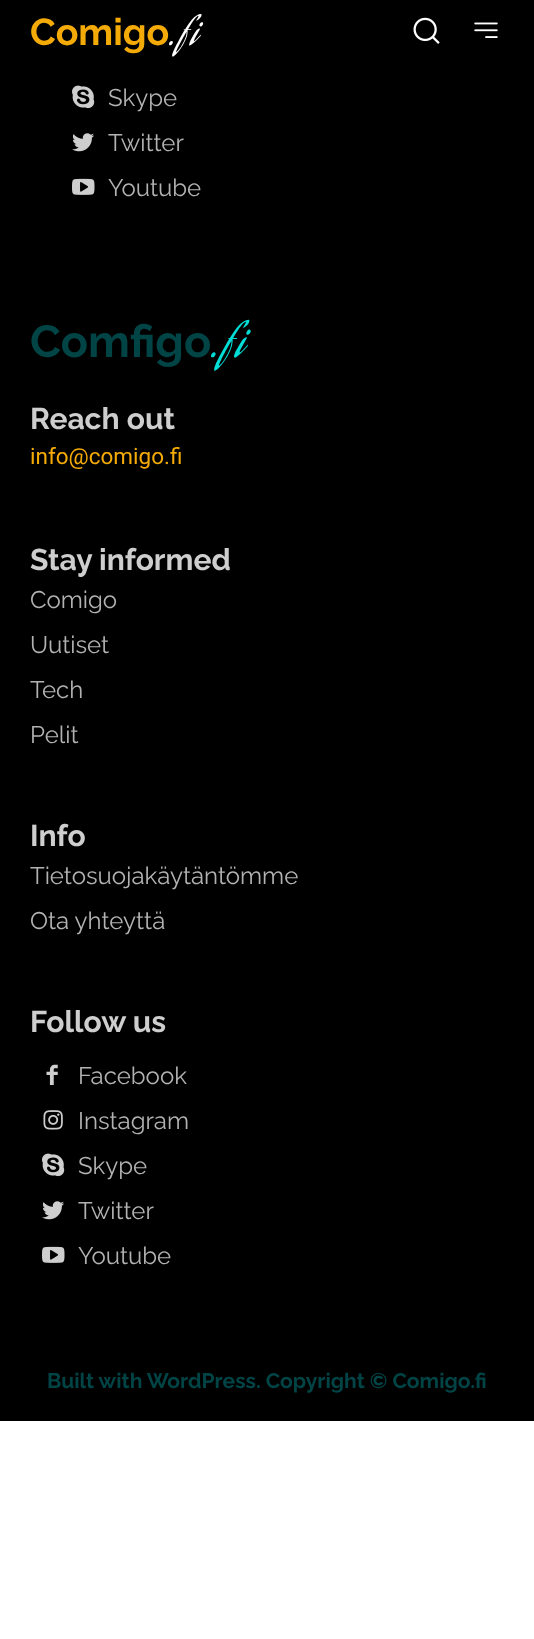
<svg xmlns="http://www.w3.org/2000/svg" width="534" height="1639">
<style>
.a{font:bold 37.5px Raleway;fill:#f5ab07}
.b{font:37.5px Aguafina Script;letter-spacing:3px;fill:#fff}
.c{font:24px Raleway;fill:#b2b2b2}
.d{font:bold 45px Raleway;fill:#004446}
.e{font:45px Aguafina Script;letter-spacing:3px;fill:#00ddd6}
.f{font:bold 30px Raleway;fill:#cecece}
.g{font:22.5px Roboto;fill:#f5ab07}
.h{font:bold 21px Raleway;fill:#004446}
</style>
<rect width="100%" height="100%" fill="#fff"/>
<path fill="#000" d="M0 0h534v1421H0z"/>
<image href="1.png" x="413" y="17" width="27" height="27"/>
<image href="2.png" x="474" y="22" width="24" height="16"/>
<image href="3.png" x="72" y="85" width="23" height="24"/>
<image href="4.png" x="72" y="133" width="22" height="19"/>
<image href="5.png" x="72" y="178" width="23" height="17"/>
<image href="6.png" x="46" y="1064" width="12" height="21"/>
<image href="7.png" x="43" y="1110" width="20" height="20"/>
<image href="3.png" x="42" y="1153" width="23" height="24"/>
<image href="4.png" x="42" y="1201" width="22" height="19"/>
<image href="5.png" x="42" y="1246" width="23" height="17"/>
<text class="a" x="30" y="45">Comigo</text>
<text class="b" x="169" y="45">.fi</text>
<text class="c" x="108" y="106">Skype</text>
<text class="c" x="108" y="151">Twitter</text>
<text class="c" x="108" y="196">Youtube</text>
<text class="d" x="30" y="357">Comfigo</text>
<text class="e" x="211" y="357">.fi</text>
<text class="f" x="30" y="429">Reach out</text>
<text class="g" x="30" y="464">info@comigo.fi</text>
<text class="f" x="30" y="570">Stay informed</text>
<text class="c" x="30" y="608">Comigo</text>
<text class="c" x="30" y="653">Uutiset</text>
<text class="c" x="30" y="698">Tech</text>
<text class="c" x="30" y="743">Pelit</text>
<text class="f" x="30" y="846">Info</text>
<text class="c" x="30" y="884">Tietosuojakäytäntömme</text>
<text class="c" x="30" y="929">Ota yhteyttä</text>
<text class="f" x="30" y="1032">Follow us</text>
<text class="c" x="78" y="1084">Facebook</text>
<text class="c" x="78" y="1129">Instagram</text>
<text class="c" x="78" y="1174">Skype</text>
<text class="c" x="78" y="1219">Twitter</text>
<text class="c" x="78" y="1264">Youtube</text>
<text class="h" x="47" y="1388">Built with WordPress. Copyright © Comigo.fi</text>
</svg>
